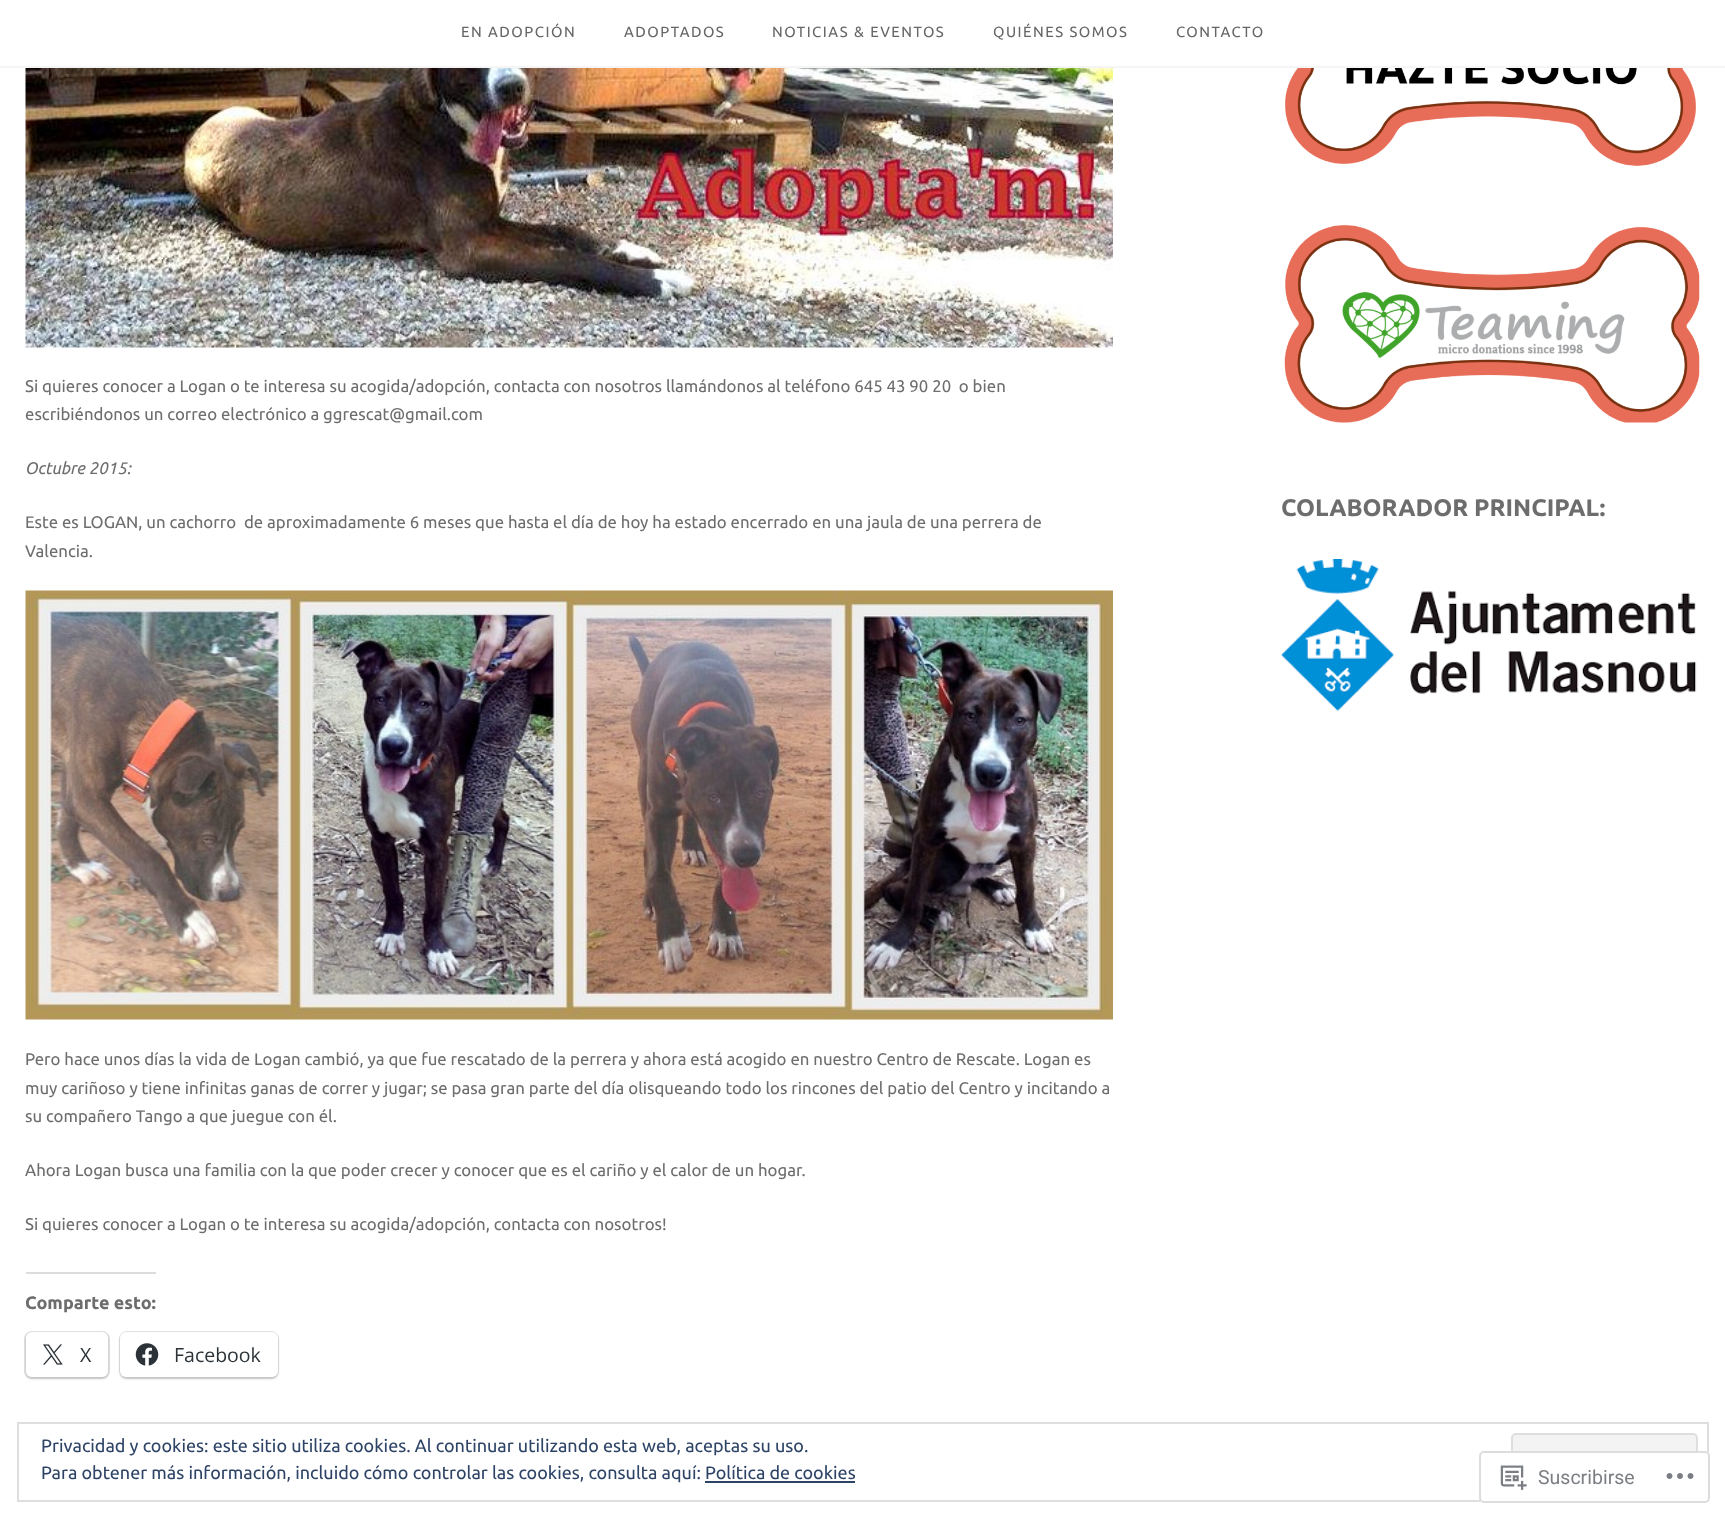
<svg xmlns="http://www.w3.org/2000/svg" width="1725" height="1518">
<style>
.a{font:14.75px Ubuntu;letter-spacing:1.5px;fill:#666}
.b{font:16.8px Ubuntu;fill:#6d6d6d}
.c{font:italic 16.8px Ubuntu;fill:#6d6d6d}
.d{font:bold 18px Ubuntu;fill:#6d6d6d}
.e{font:19.5px Open Sans;fill:#2c3338}
.f{font:bold 24px Ubuntu;fill:#6d6d6d}
.g{font:18px Ubuntu;fill:#2e4467}
.h{font:19.5px Roboto;fill:#7b7f84}
</style>
<rect width="100%" height="100%" fill="#fff"/>
<path fill="#f5f5f5" d="M0 66h1725v2H0z"/>
<image href="1.png" x="25" y="68" width="1088" height="280"/>
<image href="2.png" x="25" y="590" width="1088" height="430"/>
<path fill="#dcdcde" d="M26 1272h130v2H26z"/>
<rect fill="none" stroke="#e0e0e0" stroke-width="2" x="25" y="1332" width="84" height="46" rx="7"/>
<rect fill="#0000001f" filter="blur(1.5px)" x="26" y="1334" width="82" height="45" rx="6"/>
<rect fill="#fff" x="26" y="1332" width="82" height="45" rx="6"/>
<image href="3.png" x="43" y="1344" width="20" height="21"/>
<rect fill="none" stroke="#e0e0e0" stroke-width="2" x="120" y="1332" width="158" height="46" rx="7"/>
<rect fill="#0000001f" filter="blur(1.5px)" x="120" y="1334" width="158" height="45" rx="6"/>
<rect fill="#fff" x="120" y="1332" width="158" height="45" rx="6"/>
<image href="4.png" x="135" y="1343" width="24" height="23"/>
<image href="5.png" x="1285" y="68" width="412" height="98"/>
<image href="6.png" x="1284" y="224" width="416" height="199"/>
<image href="7.png" x="1281" y="559" width="416" height="152"/>
<path fill="none" stroke="#dedede" stroke-width="2" d="M18 1423h1690v78H18z"/>
<rect fill="#f3f3f3" stroke="#dedede" stroke-width="2" x="1512" y="1434" width="185" height="56" rx="4"/>
<path fill="#2e4467" d="M705 1481h150v2H705z"/>
<rect fill="#fffffffa" x="1479" y="1451" width="231" height="52" rx="5"/>
<rect fill="none" stroke="#dcdcdefa" stroke-width="2" x="1480" y="1452" width="229" height="50" rx="4"/>
<image href="8.png" x="1500" y="1465" width="27" height="25"/>
<image href="9.png" x="1666" y="1473" width="28" height="6"/>
<text class="a" x="461" y="37">EN ADOPCIÓN</text>
<text class="a" x="624" y="37">ADOPTADOS</text>
<text class="a" x="772" y="37">NOTICIAS &amp; EVENTOS</text>
<text class="a" x="993" y="37">QUIÉNES SOMOS</text>
<text class="a" x="1176" y="37">CONTACTO</text>
<text class="b" xml:space="preserve" x="25" y="392">Si quieres conocer a Logan o te interesa su acogida/adopción, contacta con nosotros llamándonos al teléfono 645 43 90 20  o bien</text>
<text class="b" x="25" y="420">escribiéndonos un correo electrónico a ggrescat@gmail.com</text>
<text class="c" x="25" y="474">Octubre 2015:</text>
<text class="b" xml:space="preserve" x="25" y="528">Este es LOGAN, un cachorro  de aproximadamente 6 meses que hasta el día de hoy ha estado encerrado en una jaula de una perrera de</text>
<text class="b" x="25" y="557">Valencia.</text>
<text class="b" x="25" y="1065">Pero hace unos días la vida de Logan cambió, ya que fue rescatado de la perrera y ahora está acogido en nuestro Centro de Rescate. Logan es</text>
<text class="b" x="25" y="1094">muy cariñoso y tiene infinitas ganas de correr y jugar; se pasa gran parte del día olisqueando todo los rincones del patio del Centro y incitando a</text>
<text class="b" x="25" y="1122">su compañero Tango a que juegue con él.</text>
<text class="b" x="25" y="1176">Ahora Logan busca una familia con la que poder crecer y conocer que es el cariño y el calor de un hogar.</text>
<text class="b" x="25" y="1230">Si quieres conocer a Logan o te interesa su acogida/adopción, contacta con nosotros!</text>
<text class="d" x="25" y="1309">Comparte esto:</text>
<text class="e" x="80" y="1362">X</text>
<text class="e" x="174" y="1362">Facebook</text>
<text class="f" x="1281" y="516">COLABORADOR PRINCIPAL:</text>
<text class="g" x="41" y="1452">Privacidad y cookies: este sitio utiliza cookies. Al continuar utilizando esta web, aceptas su uso.</text>
<text class="g" x="41" y="1479">Para obtener más información, incluido cómo controlar las cookies, consulta aquí: Política de cookies</text>
<text class="h" x="1538" y="1484">Suscribirse</text>
</svg>
